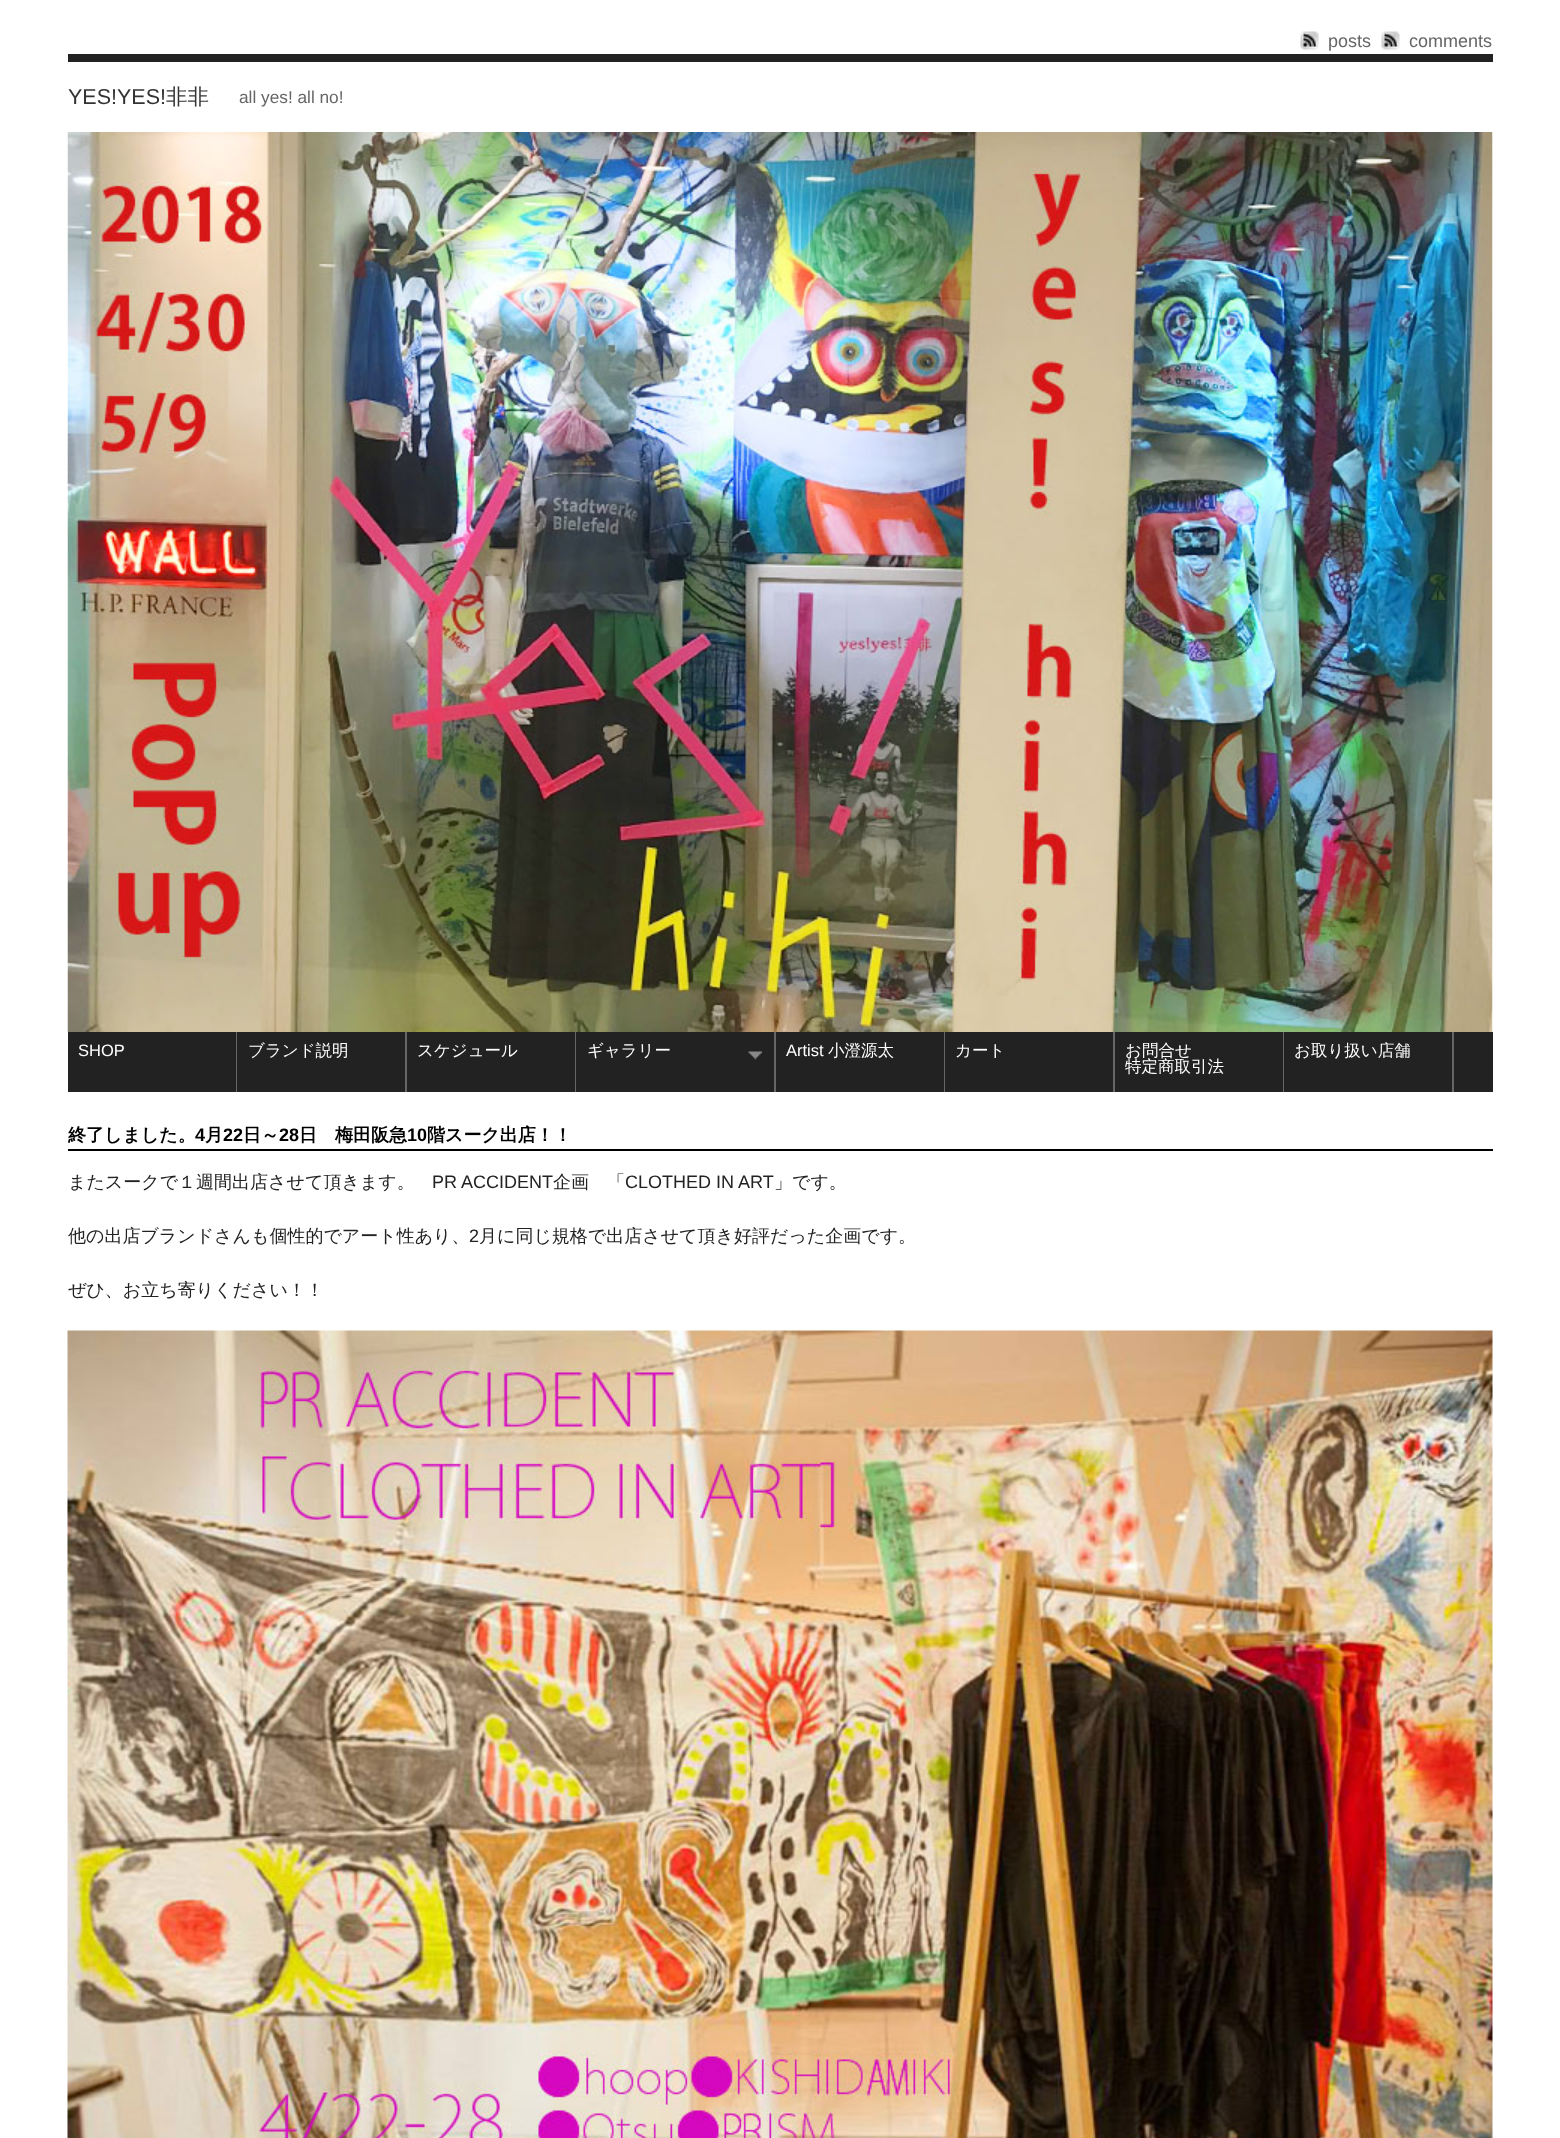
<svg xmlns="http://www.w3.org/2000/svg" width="1560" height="2138">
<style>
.a{font:18px Liberation Sans;fill:#666}
.b{font:21.5px Liberation Sans;fill:#333}
.c{font:500 21.5px WenQuanYi Zen Hei;fill:#333}
.d{font:17.25px Liberation Sans;fill:#666}
.e{font:16.5px Liberation Sans;fill:#fff}
.f{font:500 16.5px WenQuanYi Zen Hei;fill:#fff}
.g{font:bold 18px WenQuanYi Zen Hei;fill:#000}
.h{font:bold 18px Liberation Sans;fill:#000}
.i{font:500 18px WenQuanYi Zen Hei;fill:#222}
.j{font:18px Liberation Sans;fill:#222}
</style>
<rect width="100%" height="100%" fill="#fff"/>
<image href="1.png" x="1300" y="31" width="19" height="19"/>
<image href="1.png" x="1381" y="31" width="19" height="19"/>
<path fill="#222" d="M68 54h1425v8H68z"/>
<image href="2.png" x="67" y="132" width="1426" height="900"/>
<path fill="#222" d="M68 1032h1425v60H68z"/>
<path fill="#666" d="M236 1032h1v60H236z"/>
<path fill="#666" d="M405 1032h2v60H405z"/>
<path fill="#666" d="M575 1032h1v60H575z"/>
<path fill="#666" d="M774 1032h2v60H774z"/>
<image href="3.png" x="748" y="1051" width="14" height="9"/>
<path fill="#666" d="M944 1032h1v60H944z"/>
<path fill="#666" d="M1113 1032h2v60H1113z"/>
<path fill="#666" d="M1283 1032h1v60H1283z"/>
<path fill="#666" d="M1452 1032h2v60H1452z"/>
<path fill="#000" d="M68 1149h1425v2H68z"/>
<image href="4.png" x="67" y="1330" width="1426" height="808"/>
<text class="a" x="1328" y="47">posts</text>
<text class="a" x="1409" y="47">comments</text>
<text class="b" x="68" y="104">YES!YES!</text>
<text class="c" x="166" y="104">非非</text>
<text class="d" x="239" y="103">all yes! all no!</text>
<text class="e" x="78" y="1056">SHOP</text>
<text class="f" x="248" y="1056">ブランド説明</text>
<text class="f" x="417" y="1056">スケジュール</text>
<text class="f" x="587" y="1056">ギャラリー</text>
<text class="e" x="786" y="1056">Artist</text>
<text class="f" x="828" y="1056">小澄源太</text>
<text class="f" x="955" y="1056">カート</text>
<text class="f" x="1125" y="1056">お問合せ</text>
<text class="f" x="1125" y="1072">特定商取引法</text>
<text class="f" x="1294" y="1056">お取り扱い店舗</text>
<text class="g" x="68" y="1141">終了しました。</text>
<text class="h" x="195" y="1141">4</text>
<text class="g" x="205" y="1141">月</text>
<text class="h" x="223" y="1141">22</text>
<text class="g" x="243" y="1141">日～</text>
<text class="h" x="279" y="1141">28</text>
<text class="g" x="299" y="1141">日　梅田阪急</text>
<text class="h" x="407" y="1141">10</text>
<text class="g" x="427" y="1141">階スーク出店！！</text>
<text class="i" x="68" y="1188">またスークで１週間出店させて頂きます。</text>
<text class="j" x="432" y="1188">PR ACCIDENT</text>
<text class="i" x="553" y="1188">企画　「</text>
<text class="j" x="625" y="1188">CLOTHED IN ART</text>
<text class="i" x="774" y="1188">」です。</text>
<text class="i" x="68" y="1242">他の出店ブランドさんも個性的でアート性あり、</text>
<text class="j" x="469" y="1242">2</text>
<text class="i" x="479" y="1242">月に同じ規格で出店させて頂き好評だった企画です。</text>
<text class="i" x="68" y="1296">ぜひ、お立ち寄りください！！</text>
</svg>
